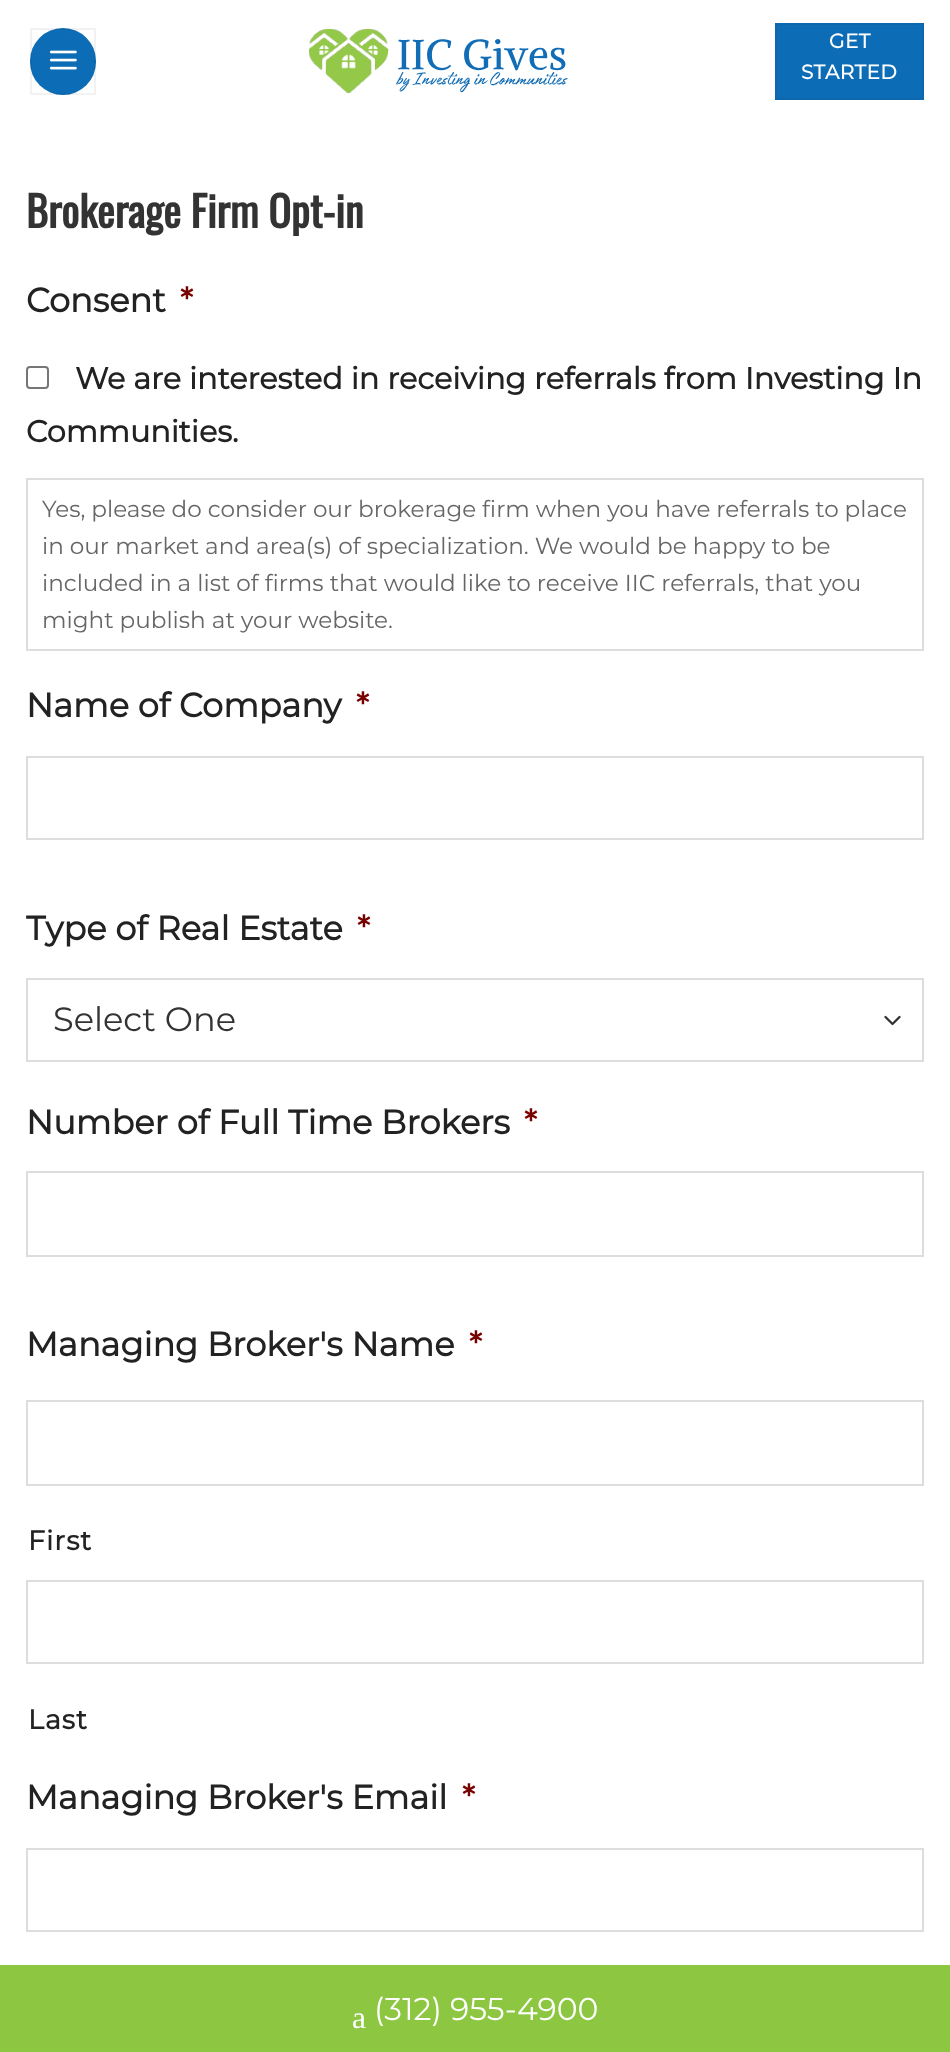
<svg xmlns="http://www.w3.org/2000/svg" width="950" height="2052">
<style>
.a{font:bold 20px Montserrat;letter-spacing:0.5px;fill:#fff}
.b{font:bold 42px Oswald;fill:#333}
.c{font:bold 33.6px Montserrat;fill:#222}
.d{font:bold 33.6px Montserrat;fill:#790000}
.e{font:bold 30.25px Montserrat;fill:#222}
.f{font:100 23.1px Montserrat;fill:#666}
.g{font:100 33.6px Montserrat;fill:#333}
.h{font:bold 27px Montserrat;letter-spacing:1px;fill:#222}
.i{font:31.5px Liberation Serif;fill:#fff}
.j{font:100 31.5px Montserrat;fill:#fff}
</style>
<rect width="100%" height="100%" fill="#fff"/>
<rect fill="#0d6cb6" x="30" y="28" width="66" height="67" rx="33"/>
<path fill="none" stroke="#0000000d" stroke-width="2" d="M31 29h64v65H31z"/>
<image href="1.png" x="49" y="50" width="28" height="20"/>
<image href="2.png" x="309" y="29" width="259" height="65"/>
<path fill="#0d6cb6" stroke="#0c67ad" stroke-width="2" d="M776 24h147v75H776z"/>
<rect fill="none" stroke="#767676" stroke-width="2" x="27" y="367" width="21" height="21" rx="3"/>
<path fill="none" stroke="#ddd" stroke-width="2" d="M27 479h896v171H27z"/>
<path fill="none" stroke="#ddd" stroke-width="2" d="M27 757h896v82H27z"/>
<path fill="none" stroke="#333" stroke-width="2.3" stroke-linecap="round" stroke-linejoin="round" d="M885.5 1017l7 7l7-7"/>
<path fill="none" stroke="#ddd" stroke-width="2" d="M27 979h896v82H27z"/>
<path fill="none" stroke="#ddd" stroke-width="2" d="M27 1172h896v84H27z"/>
<path fill="none" stroke="#ddd" stroke-width="2" d="M27 1401h896v84H27z"/>
<path fill="none" stroke="#ddd" stroke-width="2" d="M27 1581h896v82H27z"/>
<path fill="none" stroke="#ddd" stroke-width="2" d="M27 1849h896v82H27z"/>
<path fill="#8dc741" d="M0 1965h950v87H0z"/>
<text class="a" x="829" y="48">GET</text>
<text class="a" x="801" y="79">STARTED</text>
<text class="b" x="26" y="228">Brokerage Firm Opt-in</text>
<text class="c" x="26" y="312">Consent</text>
<text class="d" x="180" y="312">*</text>
<text class="e" x="75" y="389">We are interested in receiving referrals from Investing In</text>
<text class="e" x="26" y="442">Communities.</text>
<text class="f" x="42" y="517" word-spacing="-0.1">Yes, please do consider our brokerage firm when you have referrals to place</text>
<text class="f" x="42" y="554">in our market and area(s) of specialization. We would be happy to be</text>
<text class="f" x="42" y="591">included in a list of firms that would like to receive IIC referrals, that you</text>
<text class="f" x="42" y="628">might publish at your website.</text>
<text class="c" x="26" y="717">Name of Company</text>
<text class="d" x="356" y="717">*</text>
<text class="c" x="26" y="940">Type of Real Estate</text>
<text class="d" x="357" y="940">*</text>
<text class="g" x="53" y="1031">Select One</text>
<text class="c" x="26" y="1134">Number of Full Time Brokers</text>
<text class="d" x="524" y="1134">*</text>
<text class="c" x="26" y="1356">Managing Broker's Name</text>
<text class="d" x="469" y="1356">*</text>
<text class="h" x="28" y="1550">First</text>
<text class="h" x="28" y="1729">Last</text>
<text class="c" x="26" y="1809">Managing Broker's Email</text>
<text class="d" x="462" y="1809">*</text>
<text class="i" x="352" y="2028">a</text>
<text class="j" x="374" y="2020">(312) 955-4900</text>
</svg>
